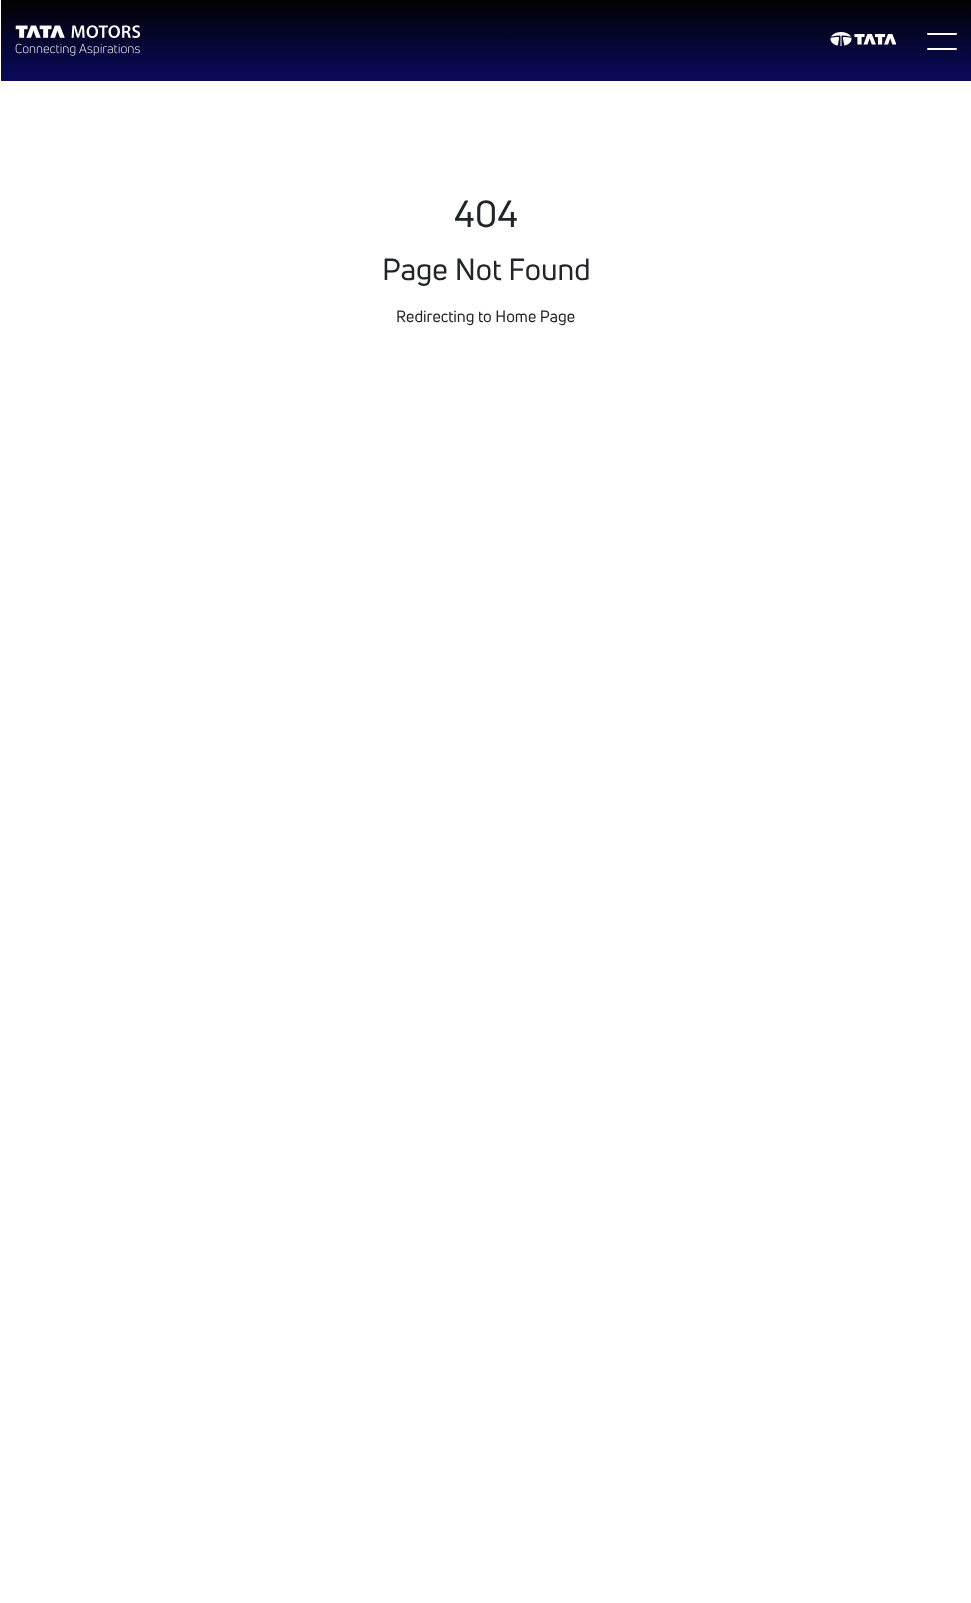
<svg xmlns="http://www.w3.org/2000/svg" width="971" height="1603">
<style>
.a{font:37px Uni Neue;fill:#212529}
.b{font:30px Uni Neue;fill:#212529}
.c{font:16px Uni Neue;fill:#212529}
</style>
<defs>
<linearGradient id="g1" gradientUnits="userSpaceOnUse" x1="486" y1="0" x2="486" y2="81"><stop offset="0" stop-color="#020202"/><stop offset="1" stop-color="#0a0a5f"/></linearGradient>
</defs>
<rect width="100%" height="100%" fill="#fff"/>
<path fill="url(#g1)" d="M1 0h970v81H1z"/>
<image href="1.png" x="15" y="25" width="125" height="31"/>
<image href="2.png" x="830" y="32" width="66" height="14"/>
<rect fill="#fff" x="927" y="33" width="30" height="2" rx="1"/>
<rect fill="#fff" x="927" y="48" width="30" height="2" rx="1"/>
<text class="a" x="454" y="227">404</text>
<text class="b" x="382" y="280">Page Not Found</text>
<text class="c" x="396" y="322">Redirecting to Home Page</text>
</svg>
